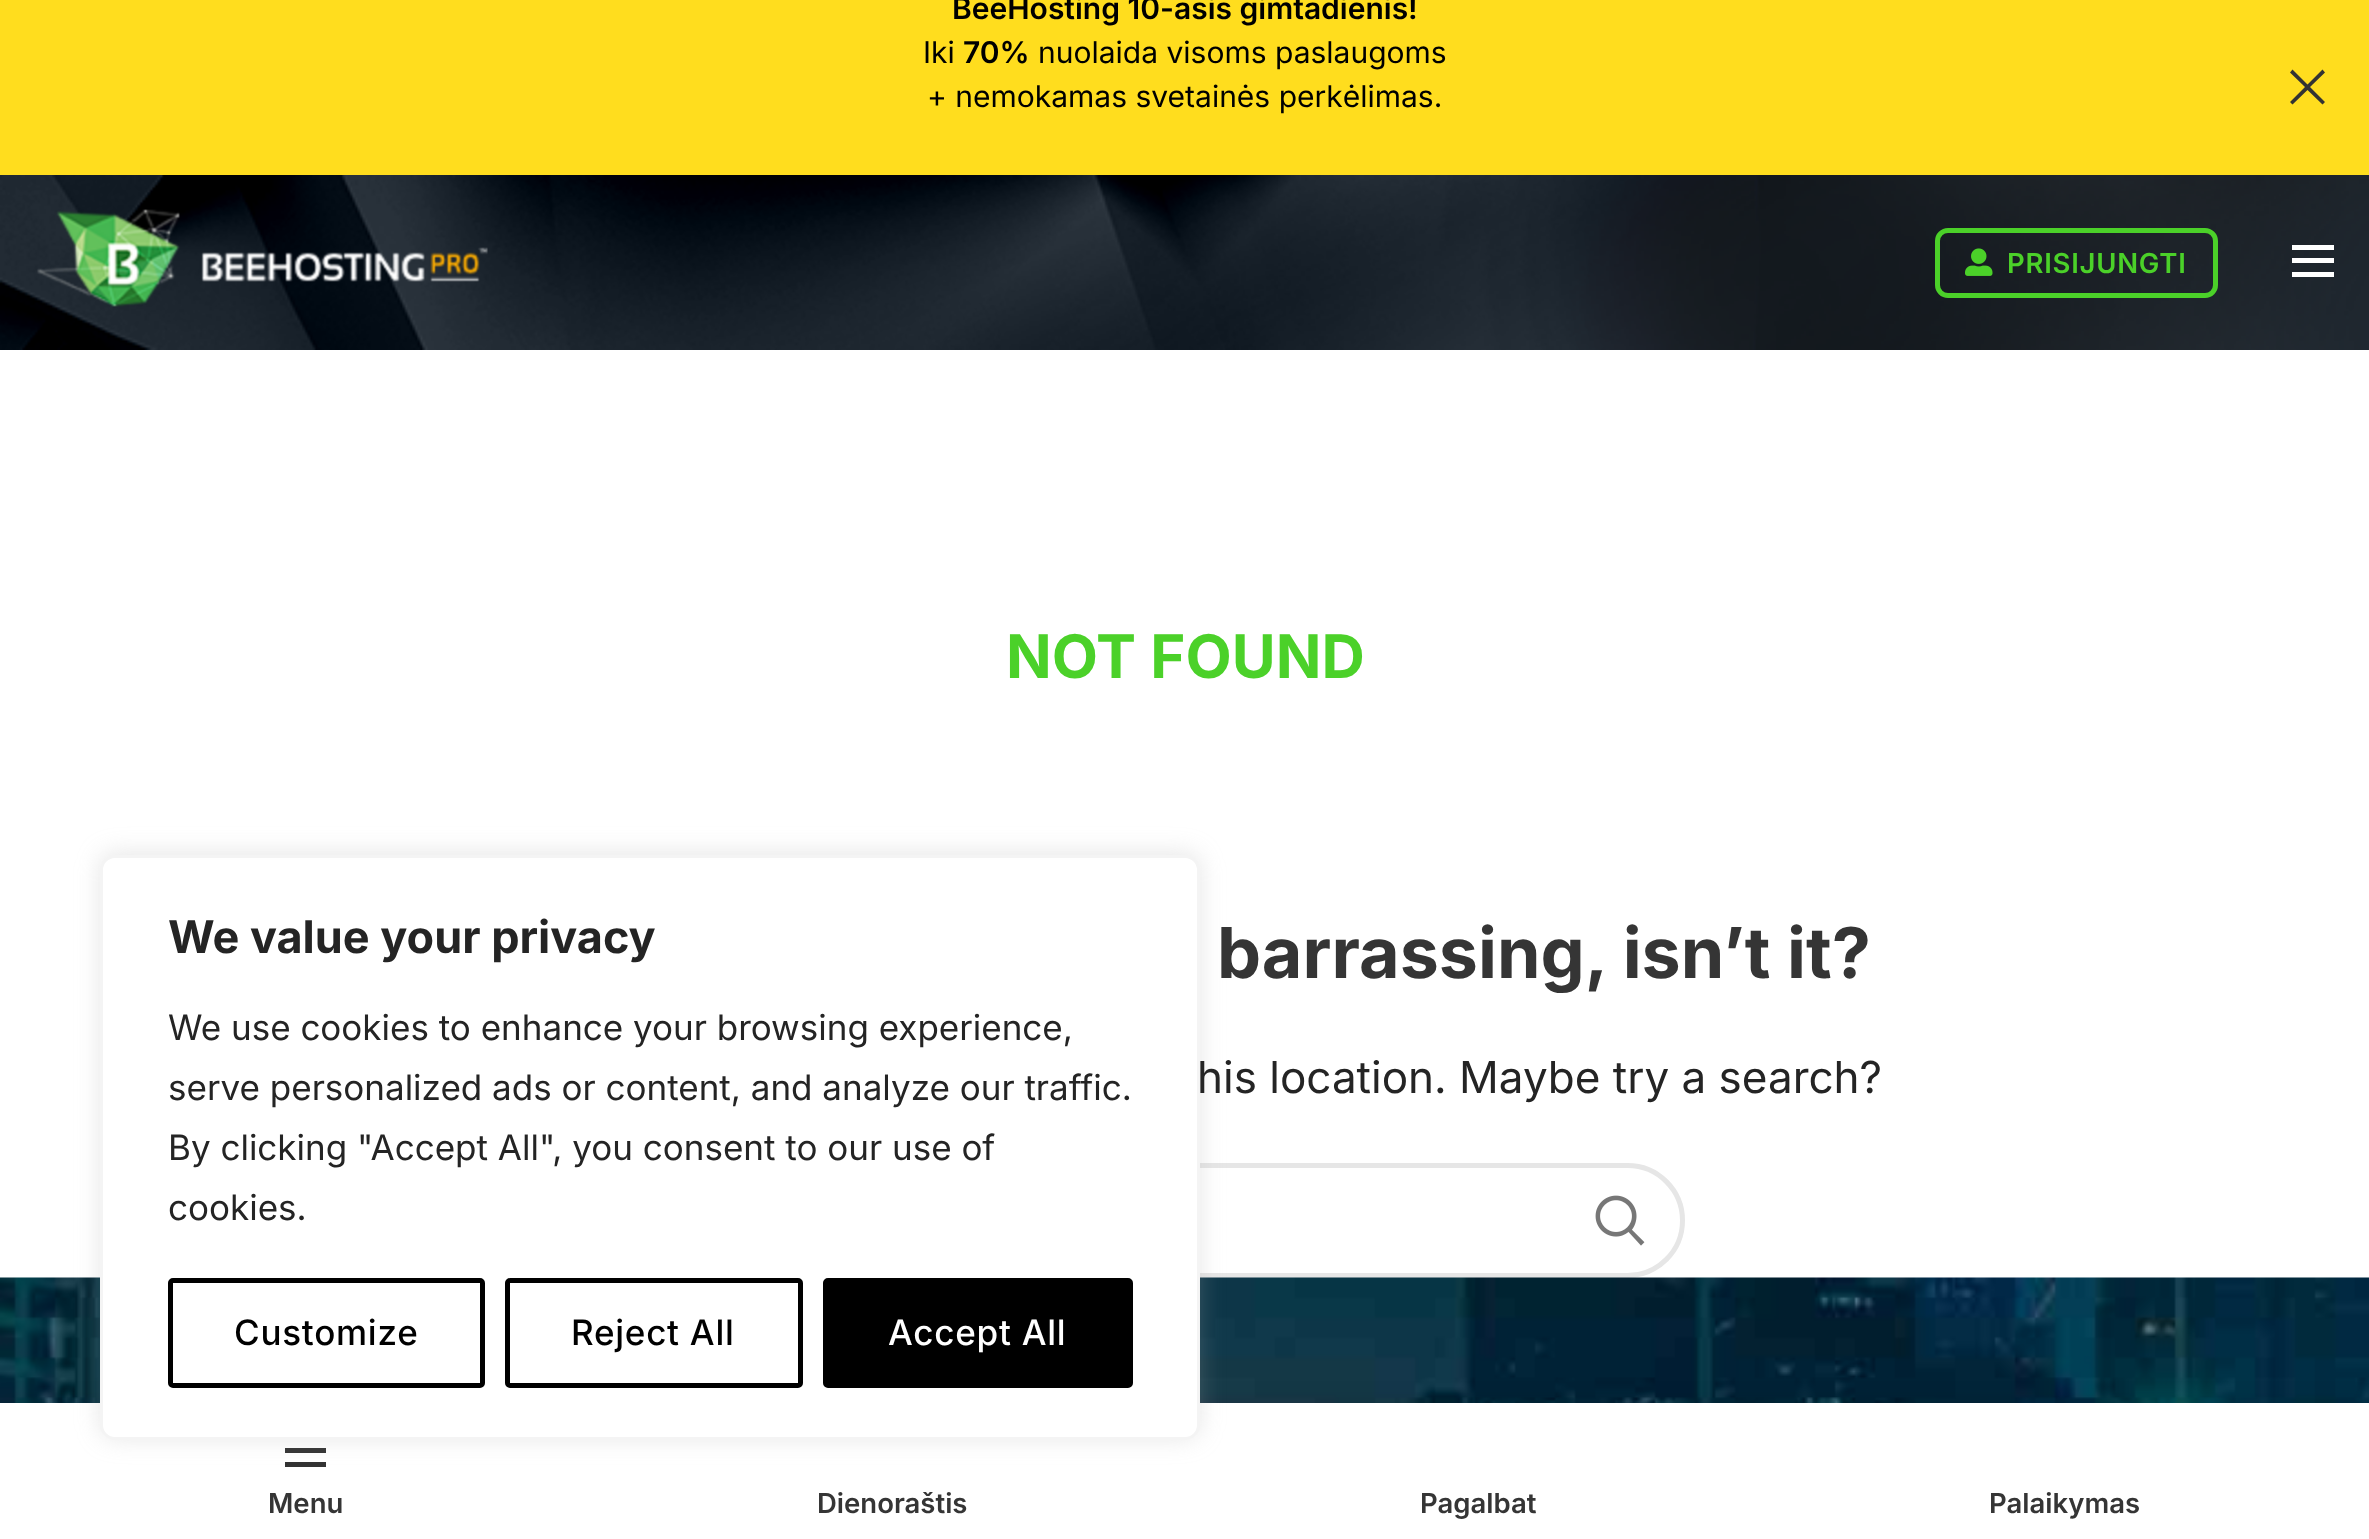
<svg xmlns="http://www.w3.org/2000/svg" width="2369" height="1539">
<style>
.a{font:600 30px Inter;fill:#000}
.b{font:30px Inter;fill:#000}
.c{font:bold 45px Inter;fill:#242424}
.d{font:35px Inter;fill:#242424}
.e{font:500 35px Inter;letter-spacing:0.75px;fill:#000}
.f{font:500 35px Inter;letter-spacing:0.75px;fill:#fff}
.g{font:600 27.5px Inter;letter-spacing:0.75px;fill:#4bd129}
.h{font:bold 60px Inter;fill:#4bd129}
.i{font:bold 70px Inter;fill:#353535}
.j{font:44px Inter;fill:#242424}
.k{font:600 27.5px Inter;fill:#353535}
</style>
<rect width="100%" height="100%" fill="#ffdd1e"/>
<path fill="#333" d="M2325 72.5l-15 14.5l15 15l-2.5 2.5l-15-14.5l-15 14.5l-2.5-2.5l15-15l-15-14.5l2.5-3l15 15l15-15z"/>
<path fill="#fff" d="M0 350h2369v928H0z"/>
<rect fill="none" stroke="#e6e6e6" stroke-width="5" x="687.5" y="1165.5" width="995" height="110" rx="55"/>
<image href="5.png" x="0" y="1277" width="2369" height="126"/>
<path fill="#0000001f" filter="blur(11px)" d="M0 1403h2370v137H0z"/>
<path fill="#fff" d="M0 1403h2369v136H0z"/>
<path fill="#333" d="M285 1435h41v5h-41zm0 13h41v5h-41zm0 14h41v5h-41z"/>
<rect fill="#acabab4d" filter="blur(12.5px)" x="100" y="853" width="1100" height="585" rx="15"/>
<rect fill="#fff" stroke="#f4f4f4" stroke-width="3" x="101.5" y="856.5" width="1097" height="582" rx="13.5"/>
<rect fill="none" stroke="#000" stroke-width="5" x="170.5" y="1280.5" width="312" height="105" rx="2.5"/>
<rect fill="none" stroke="#000" stroke-width="5" x="507.5" y="1280.5" width="293" height="105" rx="2.5"/>
<rect fill="#000" stroke="#000" stroke-width="5" x="825.5" y="1280.5" width="305" height="105" rx="2.5"/>
<image href="1.png" x="0" y="175" width="2369" height="175"/>
<image href="2.png" x="37" y="209" width="451" height="98"/>
<rect fill="none" stroke="#4bd129" stroke-width="5" x="1937.5" y="230.5" width="278" height="65" rx="10.5"/>
<image href="3.png" x="1965" y="248" width="28" height="28"/>
<path fill="#fff" d="M2292 245h42v5h-42zm0 13h42v5h-42zm0 14h42v5h-42z"/>
<image href="4.png" x="1595" y="1195" width="50" height="51"/>
<text class="a" x="952" y="19">BeeHosting 10-asis gimtadienis!</text>
<text class="b" x="923" y="63">Iki</text>
<text class="a" x="963" y="63">70%</text>
<text class="b" x="1038" y="63">nuolaida visoms paslaugoms</text>
<text class="b" x="927" y="107">+ nemokamas svetainės perkėlimas.</text>
<text class="c" x="168" y="953">We value your privacy</text>
<text class="d" x="168" y="1040">We use cookies to enhance your browsing experience,</text>
<text class="d" x="168" y="1100">serve personalized ads or content, and analyze our traffic.</text>
<text class="d" x="168" y="1160">By clicking "Accept All", you consent to our use of</text>
<text class="d" x="168" y="1220">cookies.</text>
<text class="e" x="234" y="1345">Customize</text>
<text class="e" x="571" y="1345">Reject All</text>
<text class="f" x="888" y="1345">Accept All</text>
<text class="g" x="2007" y="273">PRISIJUNGTI</text>
<text class="h" x="1006" y="678">NOT FOUND</text>
<text class="i" x="1217" y="978">barrassing, isn’t it?</text>
<text class="j" x="1197" y="1093">his location. Maybe try a search?</text>
<text class="k" x="268" y="1513">Menu</text>
<text class="k" x="817" y="1513">Dienoraštis</text>
<text class="k" x="1420" y="1513">Pagalbat</text>
<text class="k" x="1989" y="1513">Palaikymas</text>
</svg>
